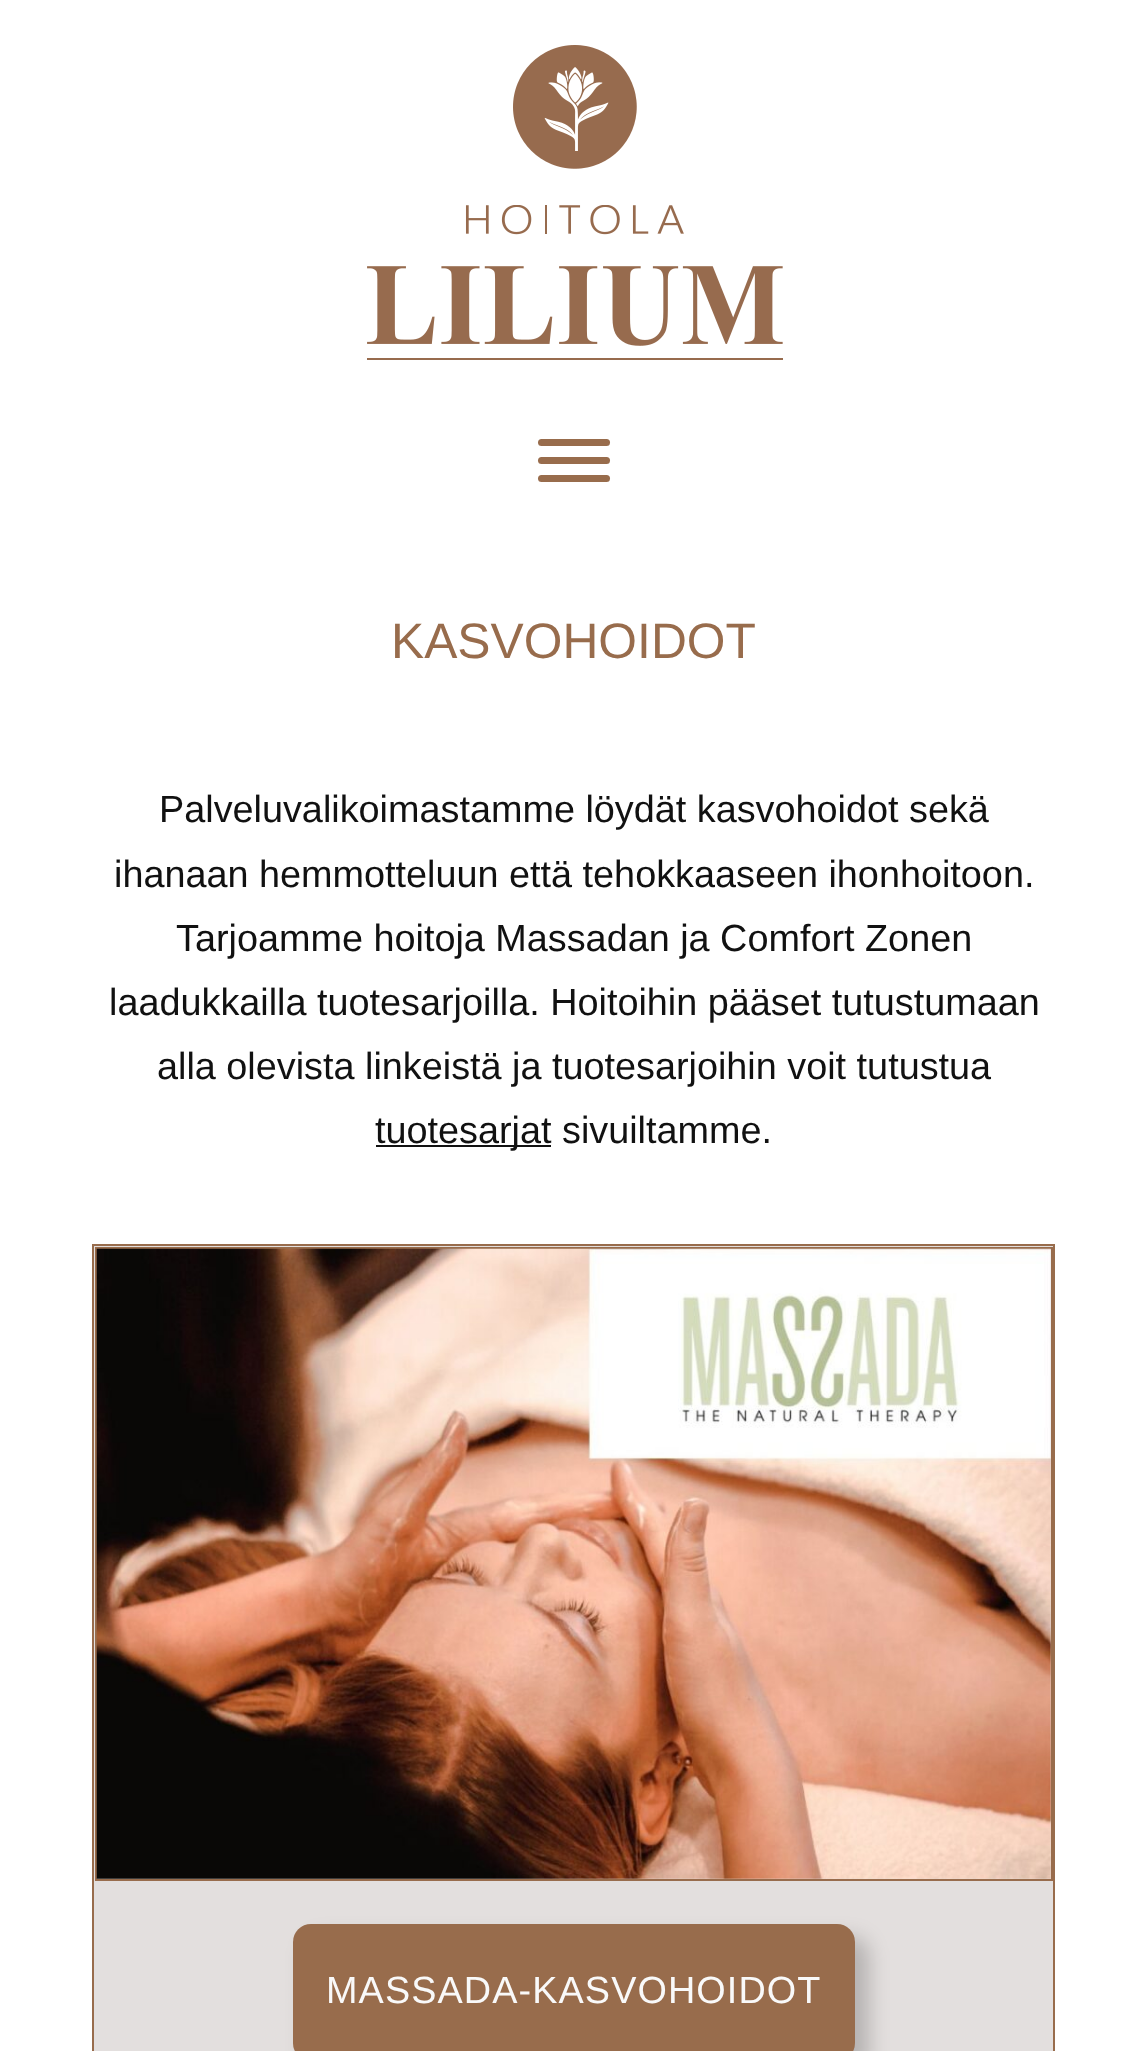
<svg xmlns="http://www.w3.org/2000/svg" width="1146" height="2051">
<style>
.a{font:49.75px Liberation Sans;fill:#986c4c}
.b{font:37.8px Liberation Sans;fill:#111}
.c{font:37.8px Liberation Sans;letter-spacing:1.1px;fill:#f9f9f9}
</style>
<rect width="100%" height="100%" fill="#fff"/>
<image href="1.png" x="513" y="45" width="124" height="124"/>
<image href="2.png" x="367" y="205" width="416" height="155"/>
<rect fill="#986c4c" x="538" y="439" width="72" height="7" rx="3.5"/>
<rect fill="#986c4c" x="538" y="457" width="72" height="7" rx="3.5"/>
<rect fill="#986c4c" x="538" y="475" width="72" height="7" rx="3.5"/>
<path fill="#111" d="M376 1145h175v2H376z"/>
<path fill="#e3dfde" stroke="#986c4c" stroke-width="2" d="M93 1245h961v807H93z"/>
<path fill="none" stroke="#986c4c" stroke-width="2" d="M96 1248h956v632H96z"/>
<image href="3.png" x="96" y="1248" width="955" height="631"/>
<rect fill="#00000033" filter="blur(10px)" x="306" y="1937" width="563" height="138" rx="18"/>
<rect fill="#986c4c" x="293" y="1924" width="562" height="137" rx="18"/>
<text class="a" x="391" y="658">KASVOHOIDOT</text>
<text class="b" x="159" y="822">Palveluvalikoimastamme löydät kasvohoidot sekä</text>
<text class="b" x="114" y="887">ihanaan hemmotteluun että tehokkaaseen ihonhoitoon.</text>
<text class="b" x="176" y="951">Tarjoamme hoitoja Massadan ja Comfort Zonen</text>
<text class="b" x="109" y="1015">laadukkailla tuotesarjoilla. Hoitoihin pääset tutustumaan</text>
<text class="b" x="157" y="1079">alla olevista linkeistä ja tuotesarjoihin voit tutustua</text>
<text class="b" x="375" y="1143">tuotesarjat sivuiltamme.</text>
<text class="c" x="326" y="2003">MASSADA-KASVOHOIDOT</text>
</svg>
